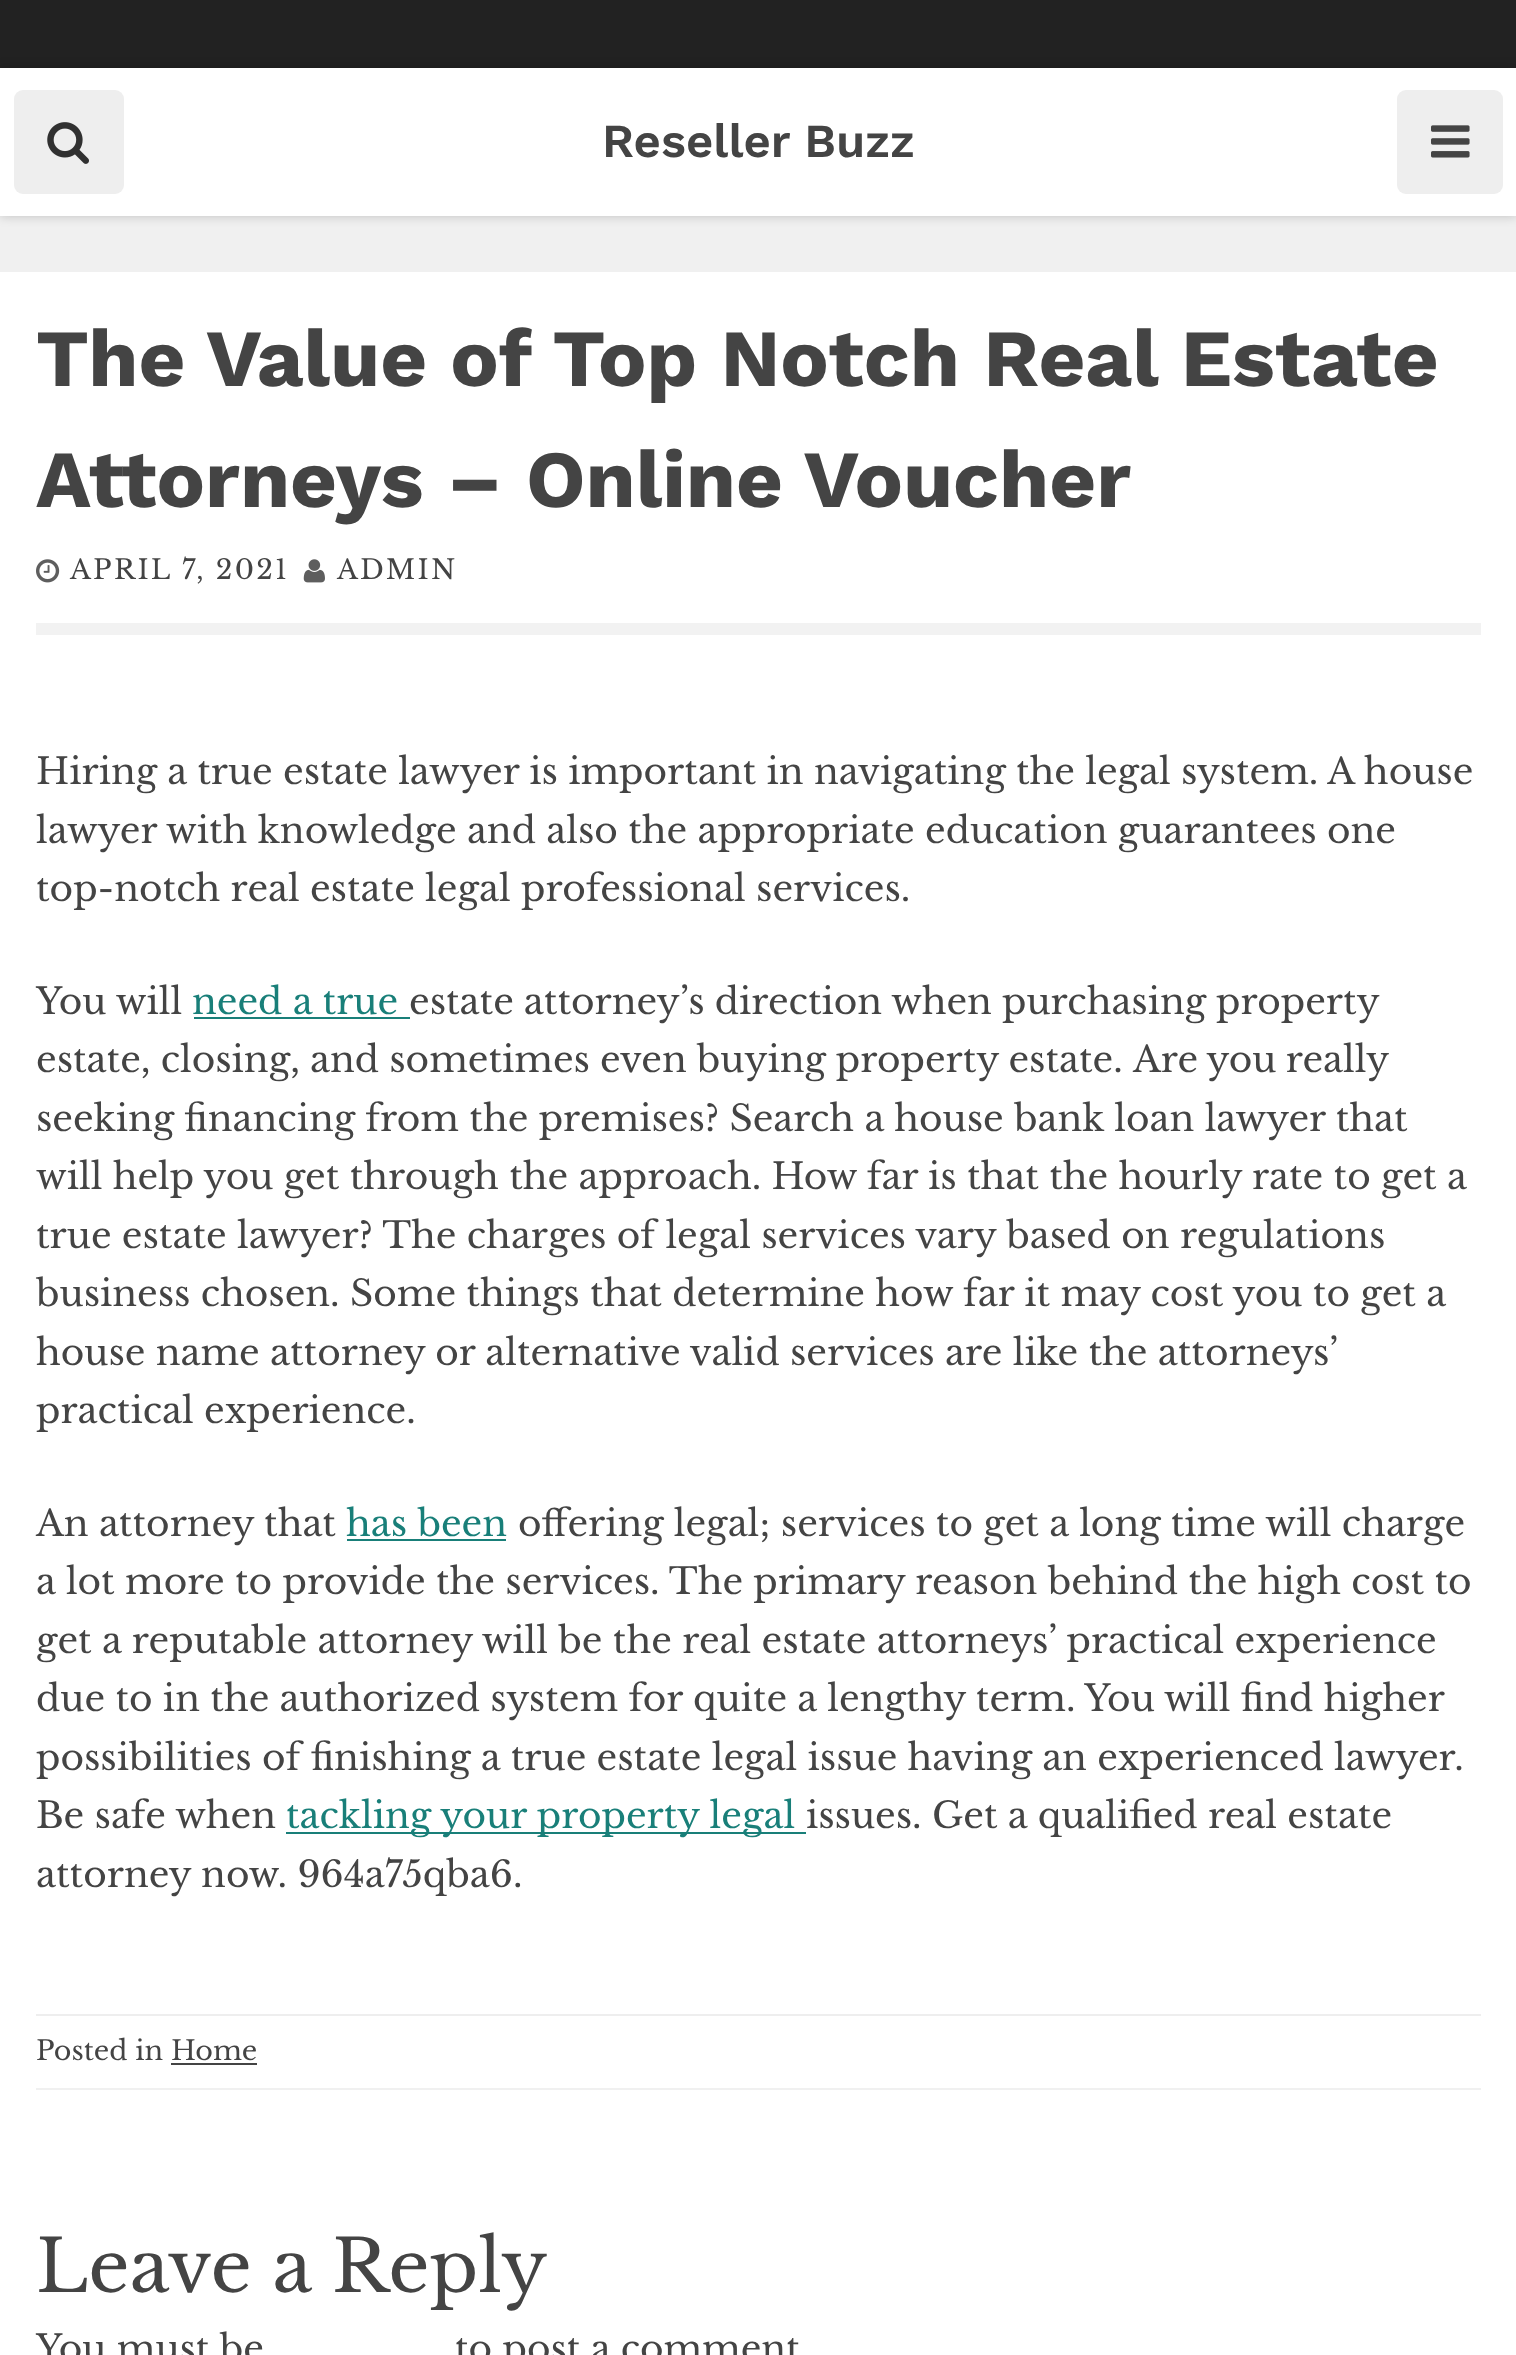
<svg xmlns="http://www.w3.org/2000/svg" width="1516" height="2355">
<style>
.a{font:600 47.25px Work Sans;fill:#444}
.b{font:bold 81px Work Sans;fill:#444}
.c{font:27px Libre Baskerville;letter-spacing:2.25px;fill:#444}
.d{font:36px Libre Baskerville;fill:#444}
.e{font:36px Libre Baskerville;fill:#197f79}
.f{font:27px Libre Baskerville;fill:#444}
.g{font:72px Libre Baskerville;fill:#444}
</style>
<defs>
<clipPath id="clip1"><path d="M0 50h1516v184h-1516zm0 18h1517v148h-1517z" clip-rule="evenodd"/></clipPath>
</defs>
<rect width="100%" height="100%" fill="#f0f0f0"/>
<path fill="#222" d="M0 0h1516v68H0z"/>
<path fill="#fff" d="M0 68h1516v148H0z"/>
<g clip-path="url(#clip1)">
<path fill="#00000033" filter="blur(5.5px)" d="M0 68h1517v148H0z"/>
</g>
<rect fill="#eee" x="14" y="90" width="110" height="104" rx="9"/>
<image href="1.png" x="47" y="122" width="42" height="42"/>
<rect fill="#eee" x="1397" y="90" width="106" height="104" rx="9"/>
<image href="2.png" x="1431" y="125" width="39" height="33"/>
<path fill="#fff" d="M0 272h1516v2083H0z"/>
<image href="3.png" x="36" y="559" width="24" height="24"/>
<image href="4.png" x="303" y="559" width="22" height="24"/>
<path fill="#f2f2f2" d="M36 623h1445v12H36z"/>
<path fill="#197f79" d="M194 1017h216v2H194z"/>
<path fill="#197f79" d="M347 1539h159v2H347z"/>
<path fill="#197f79" d="M286 1832h520v2H286z"/>
<path fill="#eee" d="M36 2014h1445v2H36z"/>
<path fill="#f0f0f0" d="M36 2088h1445v2H36z"/>
<path fill="#444" d="M171 2063h86v2H171z"/>
<text class="a" x="602" y="157">Reseller Buzz</text>
<text class="b" x="36" y="386">The Value of Top Notch Real Estate</text>
<text class="b" x="36" y="507">Attorneys – Online Voucher</text>
<text class="c" x="70" y="579">APRIL 7, 2021</text>
<text class="c" x="337" y="579">ADMIN</text>
<text class="d" x="36" y="784">Hiring a true estate lawyer is important in navigating the legal system. A house</text>
<text class="d" x="36" y="843">lawyer with knowledge and also the appropriate education guarantees one</text>
<text class="d" x="36" y="901">top-notch real estate legal professional services.</text>
<text class="d" x="36" y="1014">You will</text>
<text class="e" x="192" y="1014">need a true</text>
<text class="d" x="409" y="1014" word-spacing="-0.25">estate attorney’s direction when purchasing property</text>
<text class="d" x="36" y="1072" word-spacing="-0.25">estate, closing, and sometimes even buying property estate.</text>
<text class="d" x="1133" y="1072" word-spacing="-1">Are you really</text>
<text class="d" x="36" y="1131">seeking financing from the premises? Search a house bank loan lawyer that</text>
<text class="d" x="36" y="1189">will help you get through the approach. How far is that the hourly rate to get a</text>
<text class="d" x="36" y="1248">true estate lawyer? The charges of legal services vary based on regulations</text>
<text class="d" x="36" y="1306">business chosen. Some things that determine how far it may cost you to get a</text>
<text class="d" x="36" y="1365">house name attorney or alternative valid services are like the attorneys’</text>
<text class="d" x="36" y="1423">practical experience.</text>
<text class="d" x="36" y="1536">An attorney that</text>
<text class="e" x="346" y="1536">has been</text>
<text class="d" x="518" y="1536">offering legal; services to get a long time will charge</text>
<text class="d" x="36" y="1594">a lot more to provide the services. The primary reason behind the high cost to</text>
<text class="d" x="36" y="1653">get a reputable attorney will be the real estate attorneys’ practical experience</text>
<text class="d" x="36" y="1711">due to in the authorized system for quite a lengthy term. You will find higher</text>
<text class="d" x="36" y="1770">possibilities of finishing a true estate legal issue having an experienced lawyer.</text>
<text class="d" x="36" y="1828">Be safe when</text>
<text class="e" x="286" y="1828">tackling your property legal</text>
<text class="d" x="806" y="1828">issues. Get a qualified real estate</text>
<text class="d" x="36" y="1887">attorney now. 964a75qba6.</text>
<text class="f" x="36" y="2060">Posted in</text>
<text class="f" x="171" y="2060">Home</text>
<text class="g" x="36" y="2292">Leave a Reply</text>
<text class="d" x="36" y="2361">You must be</text>
<text class="d" x="455" y="2361">to post a comment</text>
</svg>
